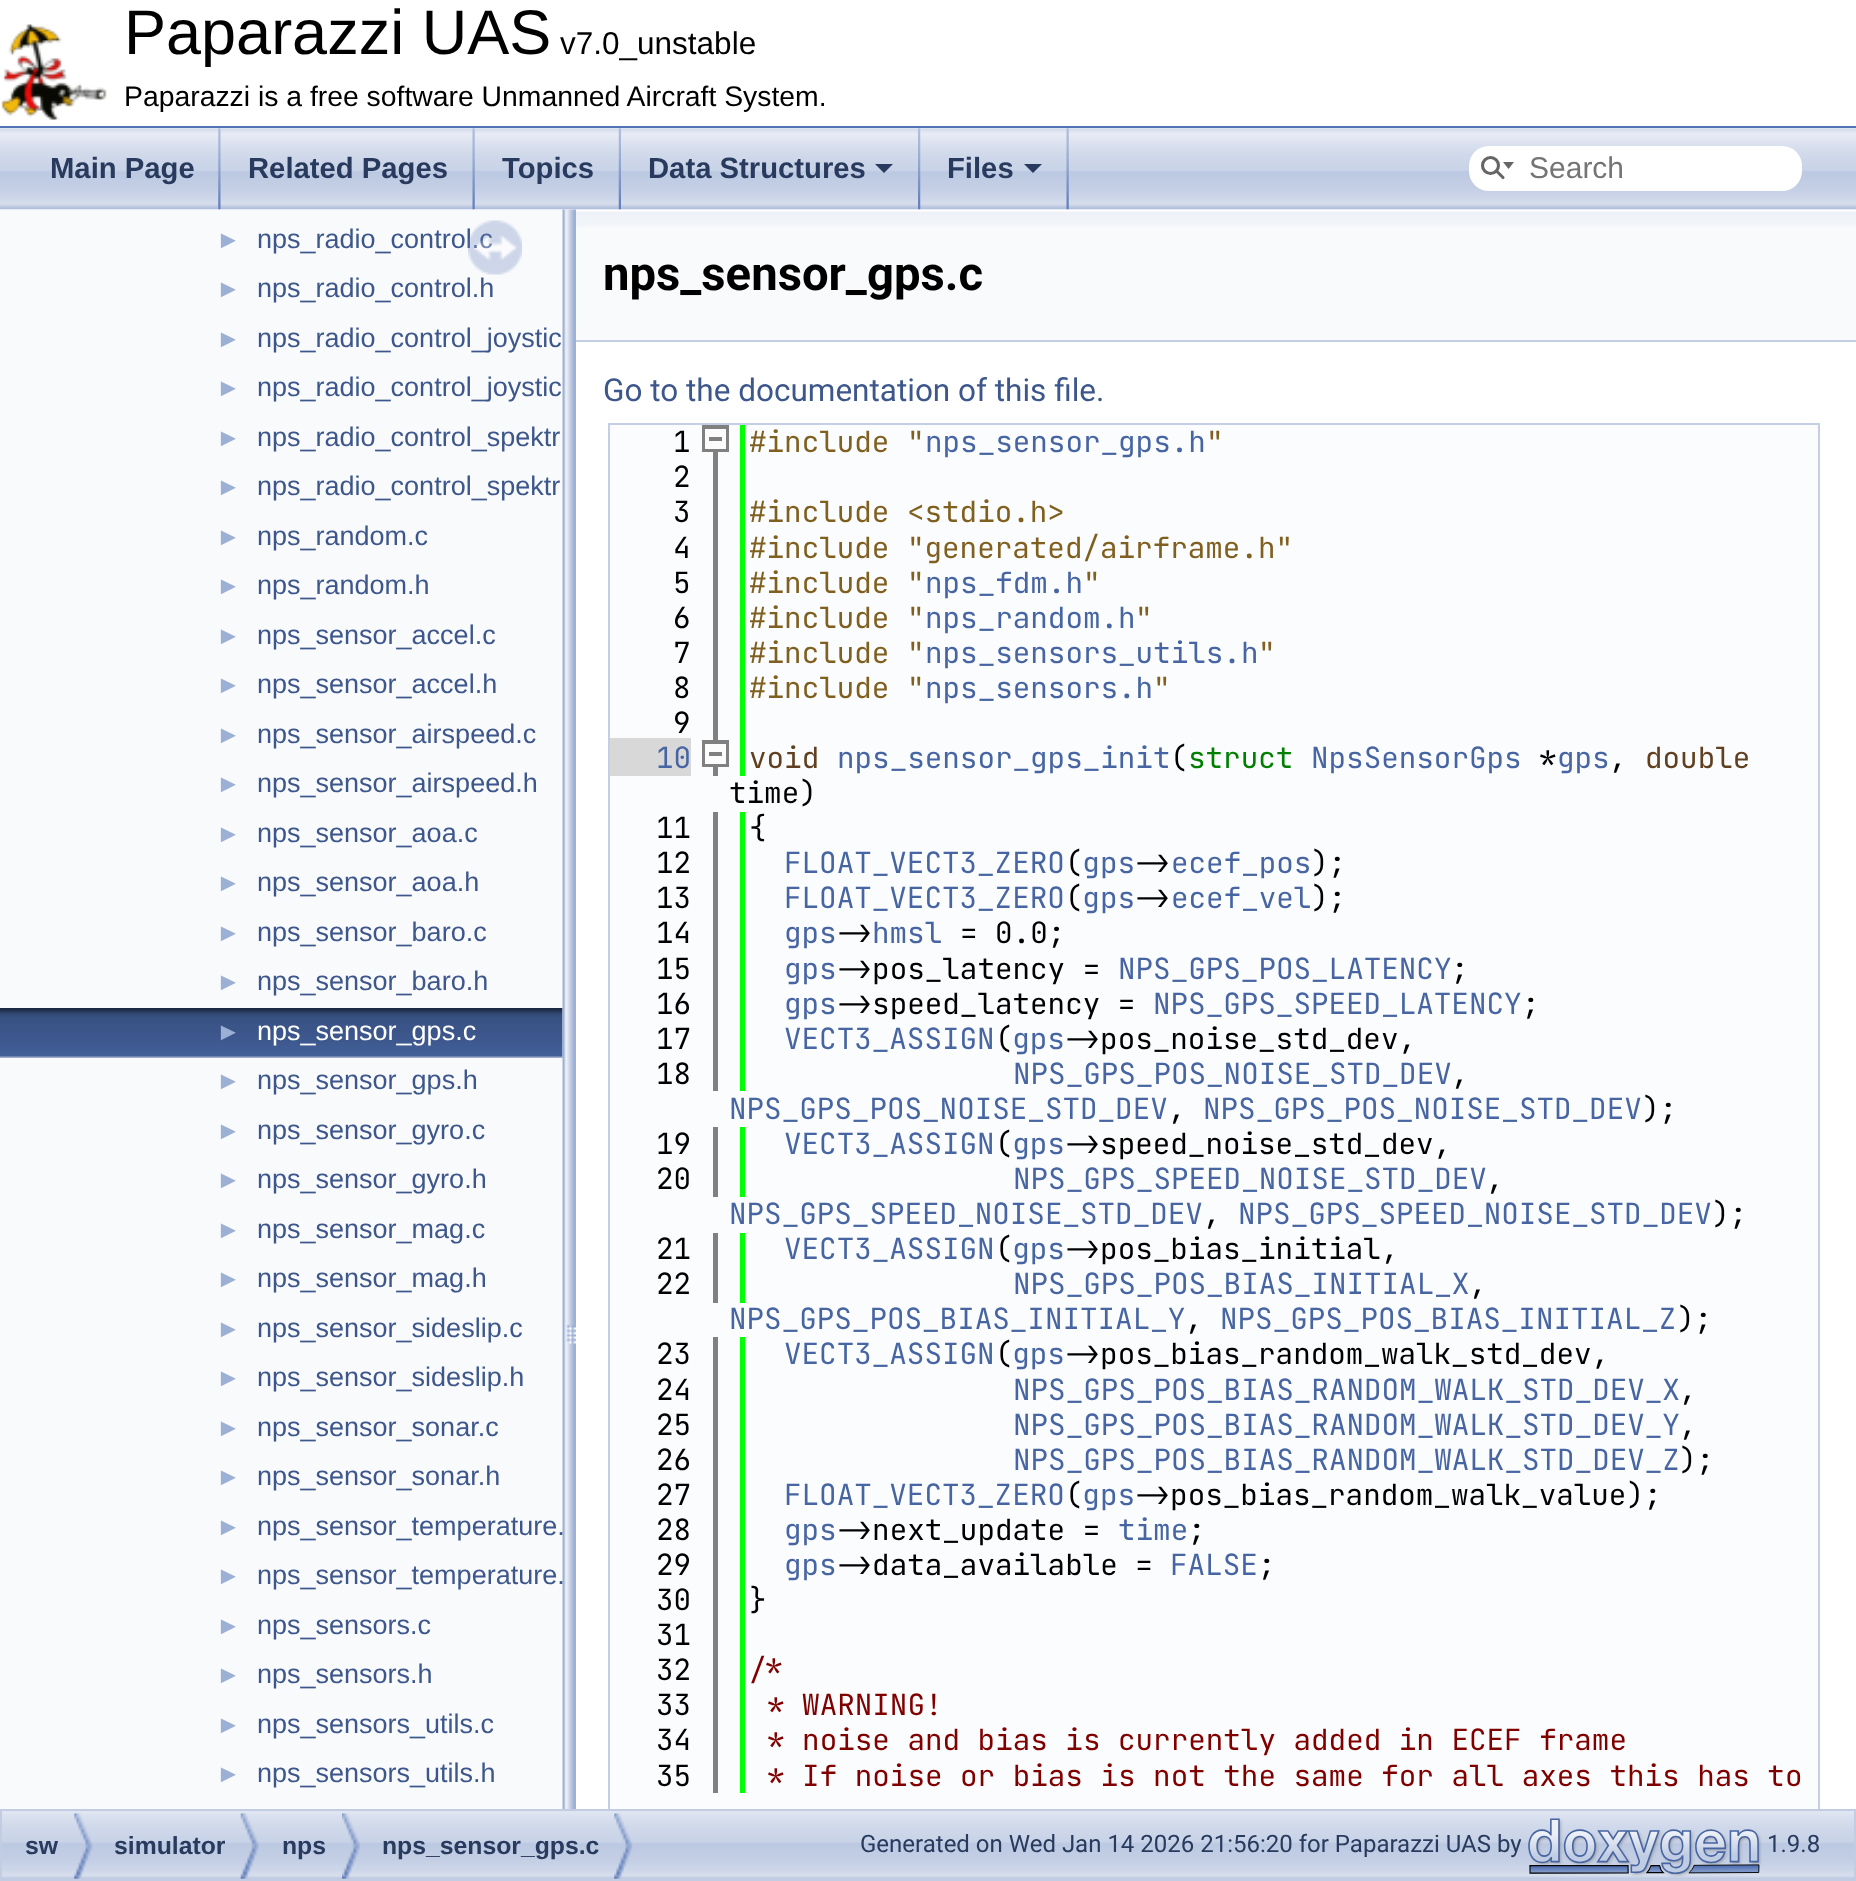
<svg xmlns="http://www.w3.org/2000/svg" width="1856" height="1881">
<style>
.a{font:63px Liberation Sans;fill:#000}
.b{font:31.5px Liberation Sans;fill:#000}
.c{font:28.35px Liberation Sans;fill:#000}
.d{font:bold 29.25px Liberation Sans;fill:#283a5d}
.e{font:30px Liberation Sans;fill:#757575}
.f{font:25px Liberation Sans;fill:#9cafd4}
.g{font:27px Liberation Sans;fill:#3d578c}
.h{font:27px Liberation Sans;fill:#fff}
.i{font:bold 47.25px Roboto;fill:#000}
.j{font:31.5px Roboto;fill:#3d578c}
.k{font:29.25px JetBrains Mono;fill:#000}
.l{font:29.25px JetBrains Mono;fill:#806020}
.m{font:29.25px JetBrains Mono;fill:#4665a2}
.n{font:29.25px JetBrains Mono;fill:#604020}
.o{font:29.25px JetBrains Mono;fill:#008000}
.p{font:29.25px JetBrains Mono;fill:#800000}
.q{font:bold 24.75px Liberation Sans;fill:#283a5d}
.r{font:24px Roboto;fill:#283a5d}
</style>
<rect width="100%" height="100%" fill="#fff"/>
<path fill="#5373b4" d="M0 126h1856v2H0z"/>
<image href="1.png" x="1" y="24" width="106" height="96"/>
<path fill="#f9fafc" d="M0 209h563v1600H0z"/>
<image href="8.png" x="0" y="1008" width="563" height="50"/>
<image href="9.png" x="562" y="209" width="14" height="1600"/>
<path fill="#f9fafc" d="M576 209h1280v131H576z"/>
<image href="2.png" x="0" y="128" width="1856" height="82"/>
<image href="3.png" x="218" y="128" width="3" height="82"/>
<image href="4.png" x="472" y="128" width="3" height="82"/>
<image href="5.png" x="618" y="128" width="3" height="82"/>
<image href="6.png" x="918" y="128" width="3" height="82"/>
<path fill="#283a5d" d="M875 164h18l-9 9z"/>
<image href="4.png" x="1066" y="128" width="3" height="82"/>
<path fill="#283a5d" d="M1024 164h18l-9 9z"/>
<rect fill="#fff" x="1469" y="146" width="333" height="45" rx="20"/>
<circle fill="none" stroke="#656565" stroke-width="3.1" cx="1490.5" cy="165.5" r="8"/>
<path fill="#656565" d="M1503 162l5.5 7l5.5-7z"/>
<path fill="none" stroke="#656565" stroke-width="3.1" stroke-linecap="round" d="M1496.5 171l6.5 6.5"/>
<image href="10.png" x="576" y="210" width="1280" height="17"/>
<path fill="#c4cfe5" d="M576 340h1280v2H576z"/>
<path fill="#fbfcfd" d="M610 425h1208v1384H610z"/>
<path fill="none" stroke="#c4cfe5" stroke-width="2" d="M609 424h1210v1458H609z"/>
<path fill="#808080" d="M713 452h5v288H713z"/>
<path fill="#0f0" d="M740 425h5v351H740z"/>
<path fill="#808080" d="M702 425h27v27H702z"/>
<path fill="#fcfcfc" d="M705 429h21v20H705z"/>
<path fill="#808080" d="M709 437h13v4H709z"/>
<path fill="#808080" d="M713 767h5v9H713z"/>
<path fill="#d8d8d8" d="M610 738h81v38H610z"/>
<path fill="#808080" d="M702 740h27v27H702z"/>
<path fill="#fcfcfc" d="M705 744h21v20H705z"/>
<path fill="#808080" d="M709 752h13v4H709z"/>
<path fill="#808080" d="M713 812h5v279H713z"/>
<path fill="#0f0" d="M740 812h5v279H740z"/>
<path fill="#808080" d="M713 1127h5v70H713z"/>
<path fill="#0f0" d="M740 1127h5v70H740z"/>
<path fill="#808080" d="M713 1233h5v70H713z"/>
<path fill="#0f0" d="M740 1233h5v70H740z"/>
<path fill="#808080" d="M713 1337h5v456H713z"/>
<path fill="#0f0" d="M740 1337h5v456H740z"/>
<image href="11.png" x="2" y="1811" width="1852" height="68"/>
<path fill="none" stroke="#c2cde4" stroke-width="2" d="M1 1810h1854v70H1z"/>
<image href="12.png" x="74" y="1813" width="19" height="66"/>
<image href="13.png" x="240" y="1813" width="19" height="66"/>
<image href="14.png" x="342" y="1813" width="18" height="66"/>
<image href="12.png" x="614" y="1813" width="19" height="66"/>
<image href="15.png" x="1528" y="1818" width="234" height="59"/>
<text class="a" x="124" y="54">Paparazzi UAS</text>
<text class="b" x="560" y="54">v7.0_unstable</text>
<text class="c" x="124" y="106">Paparazzi is a free software Unmanned Aircraft System.</text>
<text class="d" x="50" y="178">Main Page</text>
<text class="d" x="248" y="178">Related Pages</text>
<text class="d" x="502" y="178">Topics</text>
<text class="d" x="648" y="178">Data Structures</text>
<text class="d" x="947" y="178">Files</text>
<text class="e" x="1529" y="178">Search</text>
<text class="f" x="216" y="248">►</text>
<text class="g" x="257" y="248">nps_radio_control.c</text>
<image href="7.png" x="468" y="220" width="54" height="55"/>
<text class="f" x="216" y="297">►</text>
<text class="g" x="257" y="297">nps_radio_control.h</text>
<text class="f" x="216" y="347">►</text>
<text class="g" x="257" y="347">nps_radio_control_joystic</text>
<text class="f" x="216" y="396">►</text>
<text class="g" x="257" y="396">nps_radio_control_joystic</text>
<text class="f" x="216" y="446">►</text>
<text class="g" x="257" y="446">nps_radio_control_spektr</text>
<text class="f" x="216" y="495">►</text>
<text class="g" x="257" y="495">nps_radio_control_spektr</text>
<text class="f" x="216" y="545">►</text>
<text class="g" x="257" y="545">nps_random.c</text>
<text class="f" x="216" y="594">►</text>
<text class="g" x="257" y="594">nps_random.h</text>
<text class="f" x="216" y="644">►</text>
<text class="g" x="257" y="644">nps_sensor_accel.c</text>
<text class="f" x="216" y="693">►</text>
<text class="g" x="257" y="693">nps_sensor_accel.h</text>
<text class="f" x="216" y="743">►</text>
<text class="g" x="257" y="743">nps_sensor_airspeed.c</text>
<text class="f" x="216" y="792">►</text>
<text class="g" x="257" y="792">nps_sensor_airspeed.h</text>
<text class="f" x="216" y="842">►</text>
<text class="g" x="257" y="842">nps_sensor_aoa.c</text>
<text class="f" x="216" y="891">►</text>
<text class="g" x="257" y="891">nps_sensor_aoa.h</text>
<text class="f" x="216" y="941">►</text>
<text class="g" x="257" y="941">nps_sensor_baro.c</text>
<text class="f" x="216" y="990">►</text>
<text class="g" x="257" y="990">nps_sensor_baro.h</text>
<text class="f" x="216" y="1040">►</text>
<text class="h" x="257" y="1040">nps_sensor_gps.c</text>
<text class="f" x="216" y="1089">►</text>
<text class="g" x="257" y="1089">nps_sensor_gps.h</text>
<text class="f" x="216" y="1139">►</text>
<text class="g" x="257" y="1139">nps_sensor_gyro.c</text>
<text class="f" x="216" y="1188">►</text>
<text class="g" x="257" y="1188">nps_sensor_gyro.h</text>
<text class="f" x="216" y="1238">►</text>
<text class="g" x="257" y="1238">nps_sensor_mag.c</text>
<text class="f" x="216" y="1287">►</text>
<text class="g" x="257" y="1287">nps_sensor_mag.h</text>
<text class="f" x="216" y="1337">►</text>
<text class="g" x="257" y="1337">nps_sensor_sideslip.c</text>
<text class="f" x="216" y="1386">►</text>
<text class="g" x="257" y="1386">nps_sensor_sideslip.h</text>
<text class="f" x="216" y="1436">►</text>
<text class="g" x="257" y="1436">nps_sensor_sonar.c</text>
<text class="f" x="216" y="1485">►</text>
<text class="g" x="257" y="1485">nps_sensor_sonar.h</text>
<text class="f" x="216" y="1535">►</text>
<text class="g" x="257" y="1535">nps_sensor_temperature.</text>
<text class="f" x="216" y="1584">►</text>
<text class="g" x="257" y="1584">nps_sensor_temperature.</text>
<text class="f" x="216" y="1634">►</text>
<text class="g" x="257" y="1634">nps_sensors.c</text>
<text class="f" x="216" y="1683">►</text>
<text class="g" x="257" y="1683">nps_sensors.h</text>
<text class="f" x="216" y="1733">►</text>
<text class="g" x="257" y="1733">nps_sensors_utils.c</text>
<text class="f" x="216" y="1782">►</text>
<text class="g" x="257" y="1782">nps_sensors_utils.h</text>
<text class="i" x="603" y="290">nps_sensor_gps.c</text>
<text class="j" x="603" y="401">Go to the documentation of this file.</text>
<text class="k" x="673" y="452">1</text>
<text class="l" x="749" y="452">#include "</text>
<text class="m" x="925" y="452">nps_sensor_gps.h</text>
<text class="l" x="1206" y="452">"</text>
<text class="k" x="673" y="487">2</text>
<text class="k" x="673" y="522">3</text>
<text class="l" x="749" y="522">#include &lt;stdio.h&gt;</text>
<text class="k" x="673" y="558">4</text>
<text class="l" x="749" y="558">#include "generated/airframe.h"</text>
<text class="k" x="673" y="593">5</text>
<text class="l" x="749" y="593">#include "</text>
<text class="m" x="925" y="593">nps_fdm.h</text>
<text class="l" x="1083" y="593">"</text>
<text class="k" x="673" y="628">6</text>
<text class="l" x="749" y="628">#include "</text>
<text class="m" x="925" y="628">nps_random.h</text>
<text class="l" x="1135" y="628">"</text>
<text class="k" x="673" y="663">7</text>
<text class="l" x="749" y="663">#include "</text>
<text class="m" x="925" y="663">nps_sensors_utils.h</text>
<text class="l" x="1258" y="663">"</text>
<text class="k" x="673" y="698">8</text>
<text class="l" x="749" y="698">#include "</text>
<text class="m" x="925" y="698">nps_sensors.h</text>
<text class="l" x="1153" y="698">"</text>
<text class="k" x="673" y="733">9</text>
<text class="m" x="656" y="768">10</text>
<text class="n" x="749" y="768">void</text>
<text class="m" x="837" y="768">nps_sensor_gps_init</text>
<text class="k" x="1170" y="768">(</text>
<text class="o" x="1188" y="768">struct</text>
<text class="m" x="1311" y="768">NpsSensorGps</text>
<text class="k" x="1539" y="768">*</text>
<text class="m" x="1557" y="768">gps</text>
<text class="k" x="1609" y="768">,</text>
<text class="n" x="1645" y="768">double</text>
<text class="k" x="729" y="803">time)</text>
<text class="k" x="656" y="838">11</text>
<text class="k" x="749" y="838">{</text>
<text class="k" x="656" y="873">12</text>
<text class="k" x="1311" y="873">);</text>
<text class="m" x="784" y="873">FLOAT_VECT3_ZERO gps</text>
<text class="k" x="1065" y="873">(</text>
<text class="k" x="1135" y="873">-&gt;</text>
<text class="m" x="1171" y="873">ecef_pos</text>
<text class="k" x="656" y="908">13</text>
<text class="k" x="1311" y="908">);</text>
<text class="m" x="784" y="908">FLOAT_VECT3_ZERO gps</text>
<text class="k" x="1065" y="908">(</text>
<text class="k" x="1135" y="908">-&gt;</text>
<text class="m" x="1171" y="908">ecef_vel</text>
<text class="k" x="656" y="943">14</text>
<text class="m" x="784" y="943">gps</text>
<text class="k" x="837" y="943">-&gt;</text>
<text class="m" x="872" y="943">hmsl</text>
<text class="k" x="960" y="943">= 0.0;</text>
<text class="k" x="656" y="979">15</text>
<text class="m" x="784" y="979">gps</text>
<text class="k" x="837" y="979">-&gt;pos_latency =</text>
<text class="m" x="1118" y="979">NPS_GPS_POS_LATENCY</text>
<text class="k" x="1451" y="979">;</text>
<text class="k" x="656" y="1014">16</text>
<text class="m" x="784" y="1014">gps</text>
<text class="k" x="837" y="1014">-&gt;speed_latency =</text>
<text class="m" x="1153" y="1014">NPS_GPS_SPEED_LATENCY</text>
<text class="k" x="1522" y="1014">;</text>
<text class="k" x="656" y="1049">17</text>
<text class="k" x="1065" y="1049">-&gt;pos_noise_std_dev,</text>
<text class="m" x="784" y="1049">VECT3_ASSIGN gps</text>
<text class="k" x="995" y="1049">(</text>
<text class="k" x="656" y="1084">18</text>
<text class="m" x="1013" y="1084">NPS_GPS_POS_NOISE_STD_DEV</text>
<text class="k" x="1451" y="1084">,</text>
<text class="m" x="729" y="1119">NPS_GPS_POS_NOISE_STD_DEV</text>
<text class="k" x="1168" y="1119">,</text>
<text class="m" x="1203" y="1119">NPS_GPS_POS_NOISE_STD_DEV</text>
<text class="k" x="1642" y="1119">);</text>
<text class="k" x="656" y="1154">19</text>
<text class="k" x="1065" y="1154">-&gt;speed_noise_std_dev,</text>
<text class="m" x="784" y="1154">VECT3_ASSIGN gps</text>
<text class="k" x="995" y="1154">(</text>
<text class="k" x="656" y="1189">20</text>
<text class="m" x="1013" y="1189">NPS_GPS_SPEED_NOISE_STD_DEV</text>
<text class="k" x="1486" y="1189">,</text>
<text class="m" x="729" y="1224">NPS_GPS_SPEED_NOISE_STD_DEV</text>
<text class="k" x="1203" y="1224">,</text>
<text class="m" x="1238" y="1224">NPS_GPS_SPEED_NOISE_STD_DEV</text>
<text class="k" x="1712" y="1224">);</text>
<text class="k" x="656" y="1259">21</text>
<text class="k" x="1065" y="1259">-&gt;pos_bias_initial,</text>
<text class="m" x="784" y="1259">VECT3_ASSIGN gps</text>
<text class="k" x="995" y="1259">(</text>
<text class="k" x="656" y="1294">22</text>
<text class="m" x="1013" y="1294">NPS_GPS_POS_BIAS_INITIAL_X</text>
<text class="k" x="1469" y="1294">,</text>
<text class="m" x="729" y="1329">NPS_GPS_POS_BIAS_INITIAL_Y</text>
<text class="k" x="1185" y="1329">,</text>
<text class="m" x="1220" y="1329">NPS_GPS_POS_BIAS_INITIAL_Z</text>
<text class="k" x="1677" y="1329">);</text>
<text class="k" x="656" y="1364">23</text>
<text class="k" x="1065" y="1364">-&gt;pos_bias_random_walk_std_dev,</text>
<text class="m" x="784" y="1364">VECT3_ASSIGN gps</text>
<text class="k" x="995" y="1364">(</text>
<text class="k" x="656" y="1400">24</text>
<text class="m" x="1013" y="1400">NPS_GPS_POS_BIAS_RANDOM_WALK_STD_DEV_X</text>
<text class="k" x="1679" y="1400">,</text>
<text class="k" x="656" y="1435">25</text>
<text class="m" x="1013" y="1435">NPS_GPS_POS_BIAS_RANDOM_WALK_STD_DEV_Y</text>
<text class="k" x="1679" y="1435">,</text>
<text class="k" x="656" y="1470">26</text>
<text class="m" x="1013" y="1470">NPS_GPS_POS_BIAS_RANDOM_WALK_STD_DEV_Z</text>
<text class="k" x="1679" y="1470">);</text>
<text class="k" x="656" y="1505">27</text>
<text class="k" x="1135" y="1505">-&gt;pos_bias_random_walk_value);</text>
<text class="m" x="784" y="1505">FLOAT_VECT3_ZERO gps</text>
<text class="k" x="1065" y="1505">(</text>
<text class="k" x="656" y="1540">28</text>
<text class="m" x="784" y="1540">gps</text>
<text class="k" x="837" y="1540">-&gt;next_update =</text>
<text class="m" x="1118" y="1540">time</text>
<text class="k" x="1188" y="1540">;</text>
<text class="k" x="656" y="1575">29</text>
<text class="m" x="784" y="1575">gps</text>
<text class="k" x="837" y="1575">-&gt;data_available =</text>
<text class="m" x="1170" y="1575">FALSE</text>
<text class="k" x="1258" y="1575">;</text>
<text class="k" x="656" y="1610">30</text>
<text class="k" x="749" y="1610">}</text>
<text class="k" x="656" y="1645">31</text>
<text class="k" x="656" y="1680">32</text>
<text class="p" x="749" y="1680">/*</text>
<text class="k" x="656" y="1715">33</text>
<text class="p" x="767" y="1715">* WARNING!</text>
<text class="k" x="656" y="1750">34</text>
<text class="p" x="767" y="1750">* noise and bias is currently added in ECEF frame</text>
<text class="k" x="656" y="1786">35</text>
<text class="p" x="767" y="1786">* If noise or bias is not the same for all axes this has to</text>
<text class="q" x="25" y="1854">sw</text>
<text class="q" x="114" y="1854">simulator</text>
<text class="q" x="282" y="1854">nps</text>
<text class="q" x="382" y="1854">nps_sensor_gps.c</text>
<text class="r" x="860" y="1852">Generated on Wed Jan 14 2026 21:56:20 for Paparazzi UAS by</text>
<text class="r" x="1767" y="1852">1.9.8</text>
</svg>
